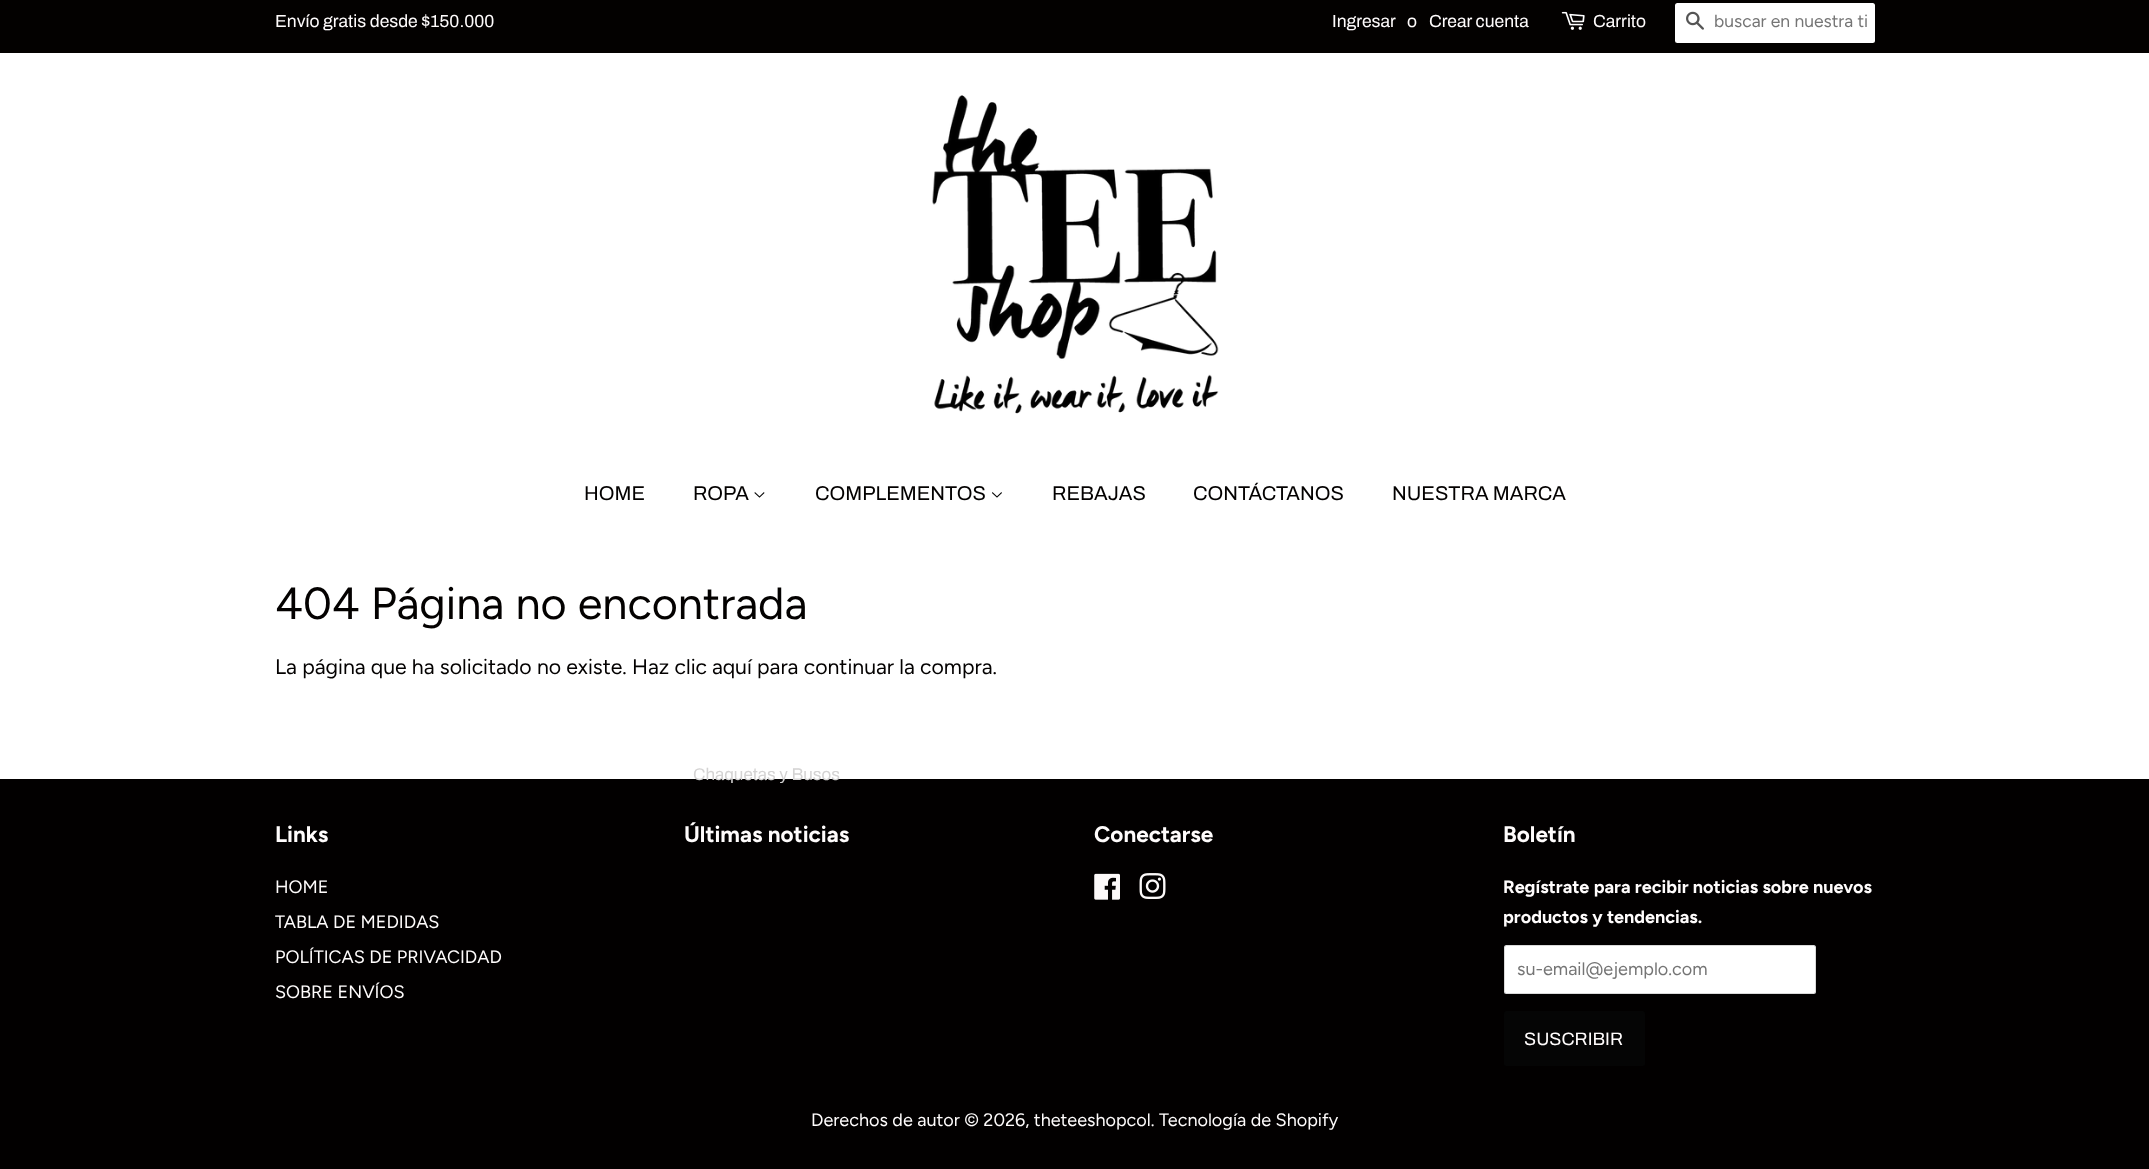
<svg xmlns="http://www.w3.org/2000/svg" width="2149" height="1169">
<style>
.a{font:17.5px Archivo;fill:#fffcfc}
.b{font:17.5px Figtree;fill:#757575}
.c{font:20px Archivo;fill:#030100}
.d{font:17px Archivo;fill:#d4d3d3}
.e{font:45px Figtree;fill:#030100}
.f{font:21.25px Figtree;fill:#030100}
.g{font:bold 22.5px Figtree;fill:#fffcfc}
.h{font:18.05px Figtree;fill:#fffcfc}
.i{font:bold 18.05px Figtree;fill:#fffcfc}
.j{font:18.05px Figtree;fill:#757575}
.k{font:18.05px Archivo;fill:#fffcfc}
</style>
<rect width="100%" height="100%" fill="#fff"/>
<path fill="#030100" d="M0 0h2149v53H0z"/>
<image href="1.png" x="1561" y="11" width="24" height="19"/>
<rect fill="#fff" x="1675" y="3" width="200" height="40" rx="2.5"/>
<image href="2.png" x="1686" y="11" width="18" height="19"/>
<image href="3.png" x="932" y="95" width="287" height="319"/>
<image href="4.png" x="754" y="492" width="11" height="6"/>
<image href="5.png" x="992" y="492" width="10" height="6"/>
<path fill="#020000" d="M0 779h2149v390H0z"/>
<image href="6.png" x="1094" y="873" width="26" height="27"/>
<image href="7.png" x="1139" y="873" width="27" height="26"/>
<rect fill="#fff" x="1504" y="945" width="312" height="49" rx="2.5"/>
<rect fill="none" stroke="#03010026" x="1504.5" y="945.5" width="311" height="48" rx="2"/>
<rect fill="#050505" x="1504" y="1011" width="141" height="55" rx="2.5"/>
<text class="a" x="275" y="27">Envío gratis desde $150.000</text>
<text class="a" x="1332" y="27">Ingresar</text>
<text class="a" x="1407" y="27">o</text>
<text class="a" x="1429" y="27">Crear cuenta</text>
<text class="a" x="1593" y="27">Carrito</text>
<text class="b" x="1714" y="27">buscar en nuestra ti</text>
<text class="c" x="584" y="500">HOME</text>
<text class="c" x="693" y="500">ROPA</text>
<text class="d" x="693" y="780">Chaquetas y Busos</text>
<text class="c" x="815" y="500">COMPLEMENTOS</text>
<text class="c" x="1052" y="500">REBAJAS</text>
<text class="c" x="1193" y="500">CONTÁCTANOS</text>
<text class="c" x="1392" y="500">NUESTRA MARCA</text>
<text class="e" x="275" y="619">404 Página no encontrada</text>
<text class="f" x="275" y="674">La página que ha solicitado no existe. Haz clic</text>
<text class="f" x="712" y="674">aquí</text>
<text class="f" x="757" y="674">para continuar la compra.</text>
<text class="g" x="275" y="842">Links</text>
<text class="h" x="275" y="893">HOME</text>
<text class="h" x="275" y="928">TABLA DE MEDIDAS</text>
<text class="h" x="275" y="963">POLÍTICAS DE PRIVACIDAD</text>
<text class="h" x="275" y="998">SOBRE ENVÍOS</text>
<text class="g" x="684" y="842">Últimas noticias</text>
<text class="g" x="1094" y="842">Conectarse</text>
<text class="g" x="1503" y="842">Boletín</text>
<text class="i" x="1503" y="893">Regístrate para recibir noticias sobre nuevos</text>
<text class="i" x="1503" y="923">productos y tendencias.</text>
<text class="j" x="1517" y="975">su-email@ejemplo.com</text>
<text class="k" x="1524" y="1045">SUSCRIBIR</text>
<text class="h" x="811" y="1126">Derechos de autor © 2026, theteeshopcol. Tecnología de Shopify</text>
</svg>
